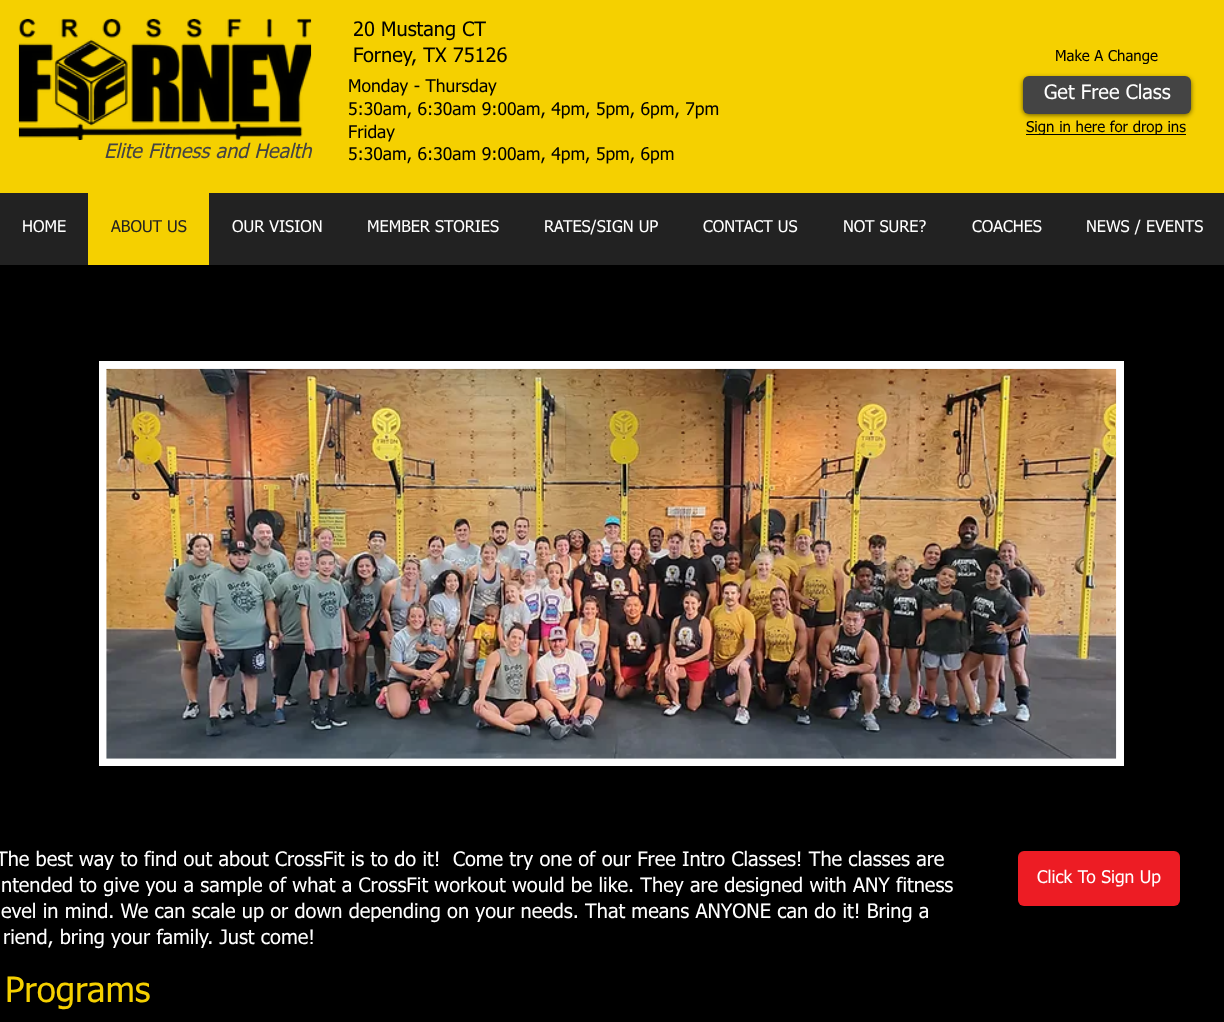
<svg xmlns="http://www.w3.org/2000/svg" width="1224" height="1022">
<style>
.a{font:20px tahoma;fill:#000}
.b{font:15px tahoma;fill:#000}
.c{font:17.5px tahoma;fill:#000}
.d{font:20px tahoma;fill:#fff}
.e{font:italic 20px tahoma;fill:#444}
.f{font:16.25px tahoma;fill:#fff}
.g{font:16.25px tahoma;fill:#222}
.h{font:17.5px tahoma;fill:#fff}
.i{font:35px tahoma;fill:#f5d000}
</style>
<rect width="100%" height="100%" fill="#000"/>
<path fill="#f5d000" d="M0 0h1224v193H0z"/>
<image href="1.png" x="18" y="18" width="294" height="122"/>
<rect fill="#00000099" filter="blur(2.5px)" x="1023" y="78" width="168" height="37" rx="6"/>
<rect fill="#444" x="1023" y="76" width="168" height="38" rx="6"/>
<path fill="#000" d="M1026 134h160v1H1026z"/>
<path fill="#222" d="M0 193h1224v72H0z"/>
<path fill="#f5d000" d="M88 193h121v72H88z"/>
<path fill="#fff" d="M99 361h1025v405H99z"/>
<image href="2.png" x="106" y="368" width="1011" height="391"/>
<rect fill="#ed1c24" x="1018" y="851" width="162" height="55" rx="6"/>
<text class="a" x="353" y="36">20 Mustang CT</text>
<text class="a" x="353" y="62">Forney, TX 75126</text>
<text class="b" x="1055" y="61">Make A Change</text>
<text class="c" x="348" y="92">Monday - Thursday</text>
<text class="c" x="348" y="115">5:30am, 6:30am 9:00am, 4pm, 5pm, 6pm, 7pm</text>
<text class="c" x="348" y="138">Friday</text>
<text class="c" x="348" y="160">5:30am, 6:30am 9:00am, 4pm, 5pm, 6pm</text>
<text class="d" x="1044" y="99">Get Free Class</text>
<text class="b" x="1026" y="132">Sign in here for drop ins</text>
<text class="e" x="104" y="158">Elite Fitness and Health</text>
<text class="f" x="22" y="232">HOME</text>
<text class="g" x="111" y="232">ABOUT US</text>
<text class="f" x="232" y="232">OUR VISION</text>
<text class="f" x="367" y="232">MEMBER STORIES</text>
<text class="f" x="544" y="232">RATES/SIGN UP</text>
<text class="f" x="703" y="232">CONTACT US</text>
<text class="f" x="843" y="232">NOT SURE?</text>
<text class="f" x="972" y="232">COACHES</text>
<text class="f" x="1086" y="232">NEWS / EVENTS</text>
<text class="d" xml:space="preserve" x="-4" y="866">The best way to find out about CrossFit is to do it!  Come try one of our Free Intro Classes! The classes are</text>
<text class="d" x="1" y="892">ntended to give you a sample of what a CrossFit workout would be like. They are designed with ANY fitness</text>
<text class="d" x="1" y="918">evel in mind. We can scale up or down depending on your needs. That means ANYONE can do it! Bring a</text>
<text class="d" x="3" y="944">riend, bring your family. Just come!</text>
<text class="h" x="1037" y="883">Click To Sign Up</text>
<text class="i" x="5" y="1002">Programs</text>
</svg>
